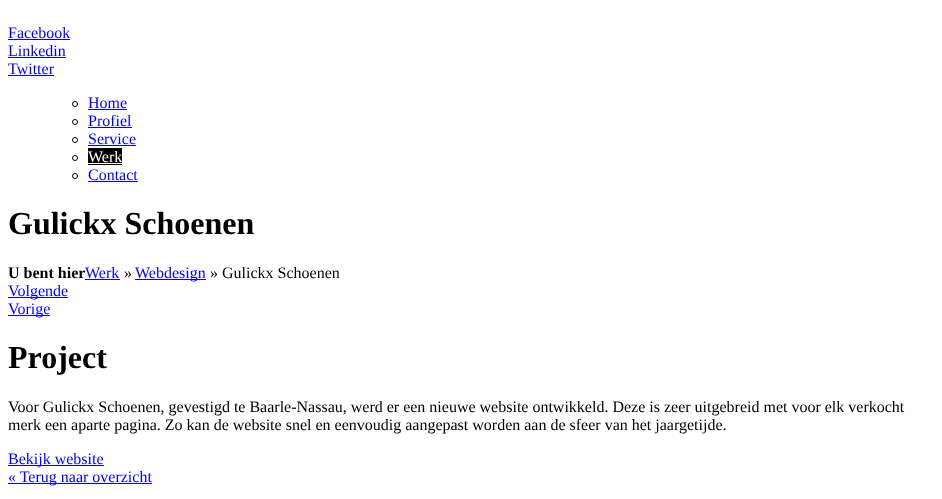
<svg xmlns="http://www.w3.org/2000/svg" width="942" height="499">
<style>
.a{font:16px Liberation Serif;fill:#00e}
.b{font:16px Liberation Serif;fill:#fff}
.c{font:bold 32px Liberation Serif;fill:#000}
.d{font:bold 16px Liberation Serif;fill:#000}
.e{font:16px Liberation Serif;fill:#000}
</style>
<rect width="100%" height="100%" fill="#fff"/>
<path fill="#00e" d="M8 39h62v1H8z"/>
<path fill="#00e" d="M8 57h58v1H8z"/>
<path fill="#00e" d="M8 75h46v1H8z"/>
<circle fill="none" stroke="#000" cx="75" cy="104" r="2.5"/>
<path fill="#00e" d="M88 109h39v1H88z"/>
<circle fill="none" stroke="#000" cx="75" cy="122" r="2.5"/>
<path fill="#00e" d="M88 127h44v1H88z"/>
<circle fill="none" stroke="#000" cx="75" cy="140" r="2.5"/>
<path fill="#00e" d="M88 145h48v1H88z"/>
<circle fill="none" stroke="#000" cx="75" cy="158" r="2.5"/>
<path fill="#000" d="M88 148h34v17H88z"/>
<path fill="#fff" d="M88 163h34v1H88z"/>
<circle fill="none" stroke="#000" cx="75" cy="176" r="2.5"/>
<path fill="#00e" d="M88 181h50v1H88z"/>
<path fill="#00e" d="M85 279h35v1H85z"/>
<path fill="#00e" d="M135 279h71v1H135z"/>
<path fill="#00e" d="M8 297h60v1H8z"/>
<path fill="#00e" d="M8 315h42v1H8z"/>
<path fill="#00e" d="M8 465h96v1H8z"/>
<path fill="#00e" d="M8 483h144v1H8z"/>
<text class="a" x="8" y="38">Facebook</text>
<text class="a" x="8" y="56">Linkedin</text>
<text class="a" x="8" y="74">Twitter</text>
<text class="a" x="88" y="108">Home</text>
<text class="a" x="88" y="126">Profiel</text>
<text class="a" x="88" y="144">Service</text>
<text class="b" x="88" y="162">Werk</text>
<text class="a" x="88" y="180">Contact</text>
<text class="c" x="8" y="234">Gulickx Schoenen</text>
<text class="d" x="8" y="278">U bent hier</text>
<text class="a" x="85" y="278">Werk</text>
<text class="e" x="124" y="278">»</text>
<text class="a" x="135" y="278">Webdesign</text>
<text class="e" x="210" y="278">» Gulickx Schoenen</text>
<text class="a" x="8" y="296">Volgende</text>
<text class="a" x="8" y="314">Vorige</text>
<text class="c" x="8" y="368">Project</text>
<text class="e" x="8" y="412">Voor Gulickx Schoenen, gevestigd te Baarle-Nassau, werd er een nieuwe website ontwikkeld. Deze is zeer uitgebreid met voor elk verkocht</text>
<text class="e" x="8" y="430">merk een aparte pagina. Zo kan de website snel en eenvoudig aangepast worden aan de sfeer van het jaargetijde.</text>
<text class="a" x="8" y="464">Bekijk website</text>
<text class="a" x="8" y="482">« Terug naar overzicht</text>
</svg>
